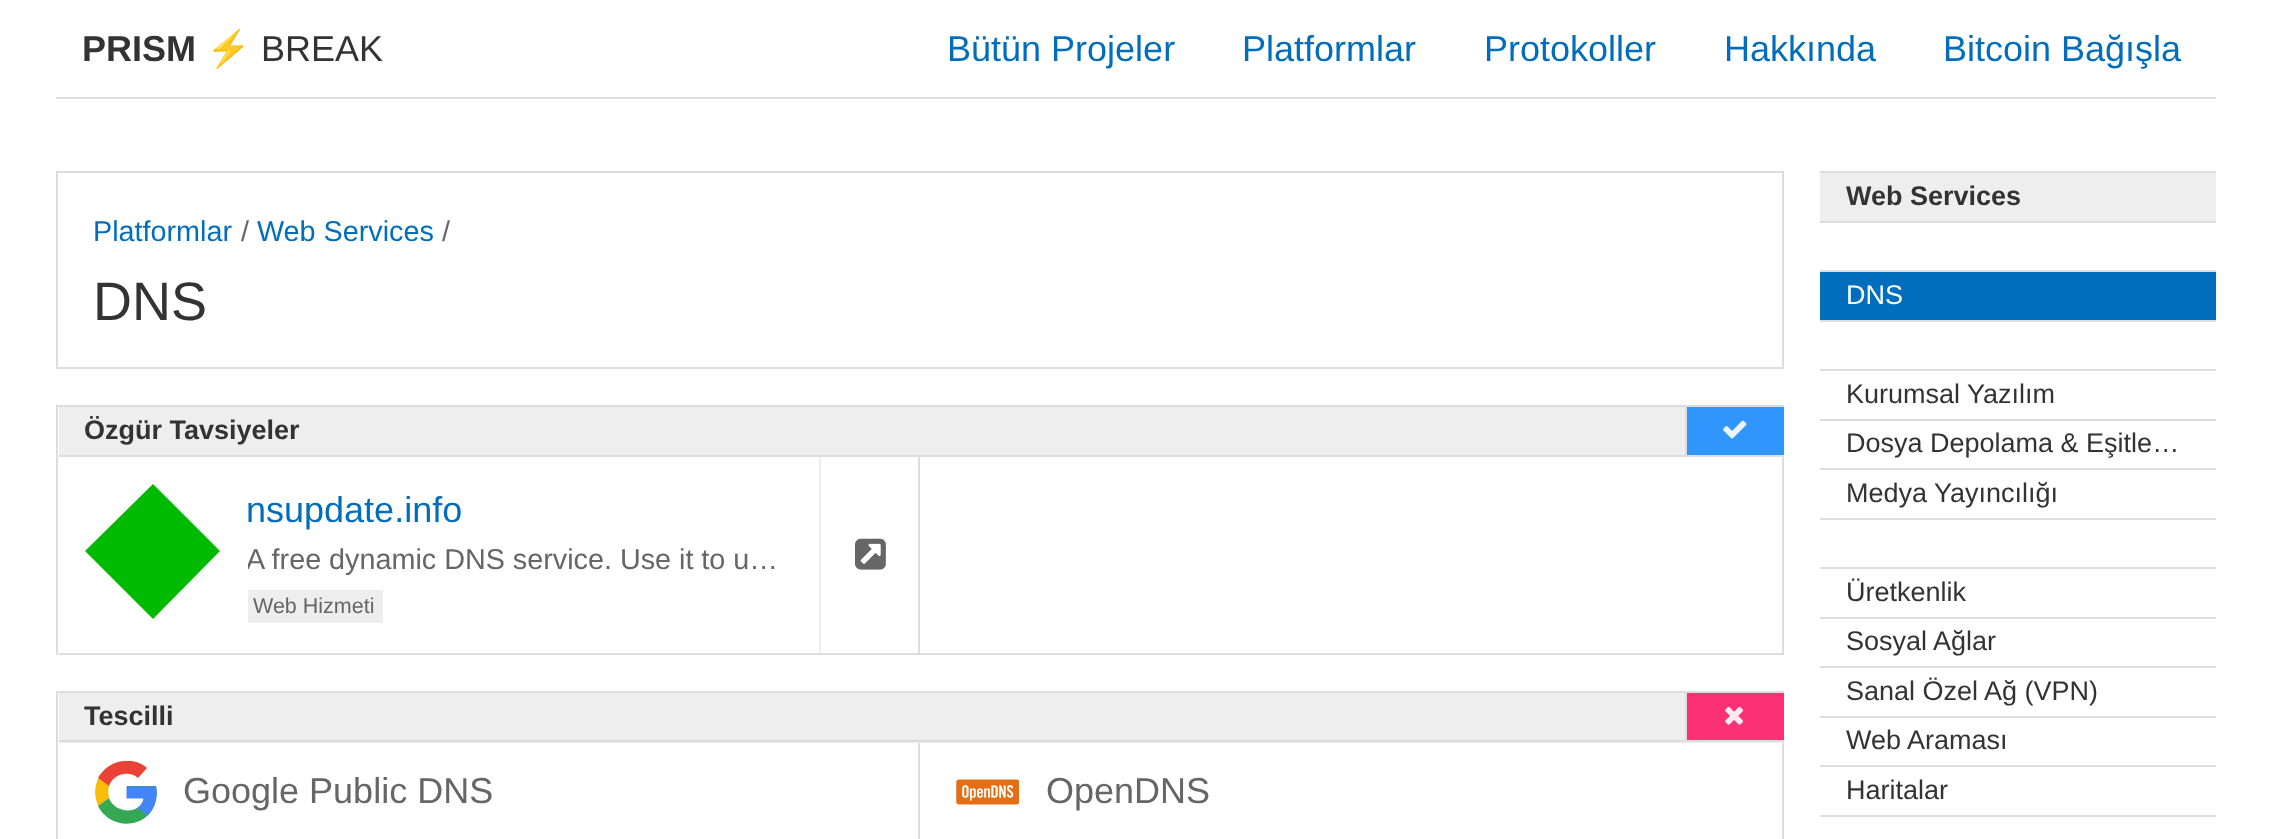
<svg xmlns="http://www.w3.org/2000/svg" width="2269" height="839">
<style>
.a{font:bold 36px Liberation Sans;fill:#333}
.b{font:36px Noto Color Emoji;fill:#999}
.c{font:36px Liberation Sans;fill:#333}
.d{font:36px Liberation Sans;fill:#006ebd}
.e{font:28.75px Liberation Sans;fill:#006ebd}
.f{font:28.75px Liberation Sans;fill:#666}
.g{font:54px Liberation Sans;fill:#333}
.h{font:bold 27px Liberation Sans;fill:#333}
.i{font:21.5px Liberation Sans;fill:#666}
.j{font:36px Liberation Sans;fill:#666}
.k{font:27px Liberation Sans;fill:#fff}
.l{font:27px Liberation Sans;fill:#333}
</style>
<defs>
<clipPath id="clip1"><path d="M95 761h63v63H95z"/></clipPath>
<clipPath id="clip2"><path d="M248 538h544v43H248z"/></clipPath>
</defs>
<rect width="100%" height="100%" fill="#fff"/>
<path fill="#ddd" d="M56 97h2160v2H56z"/>
<path fill="none" stroke="#ddd" stroke-width="2" d="M57 172h1726v196H57z"/>
<path fill="#ddd" d="M56 405h1728v2H56z"/>
<path fill="#ddd" d="M56 405h2v250H56z"/>
<path fill="#eee" d="M59 407h1626v48H59z"/>
<path fill="#ddd" d="M59 455h1725v2H59z"/>
<path fill="#3095fc" d="M1687 407h97v48H1687z"/>
<path fill="#ddd" d="M1685 407h2v48H1685z"/>
<image href="1.png" x="1723" y="420" width="24" height="19"/>
<path fill="#ddd" d="M918 457h2v198H918z"/>
<path fill="#ddd" d="M59 653h861v2H59z"/>
<path fill="#00ba00" d="M85 551l68-67l67 67l-67 68z"/>
<path fill="#eee" d="M248 590h135v33H248z"/>
<path fill="#eee" d="M819 457h2v196H819z"/>
<image href="2.png" x="855" y="538" width="31" height="32"/>
<path fill="#ddd" d="M1782 457h2v198H1782z"/>
<path fill="#ddd" d="M920 653h864v2H920z"/>
<path fill="#ddd" d="M56 691h1728v2H56z"/>
<path fill="#ddd" d="M56 691h2v148H56z"/>
<path fill="#eee" d="M59 693h1725v50H59z"/>
<path fill="#ddd" d="M59 740h1725v2H59z"/>
<path fill="#fc3074" d="M1687 693h97v47H1687z"/>
<path fill="#ddd" d="M1685 693h2v47H1685z"/>
<image href="3.png" x="1725" y="706" width="18" height="19"/>
<path fill="#ddd" d="M918 743h2v96H918z"/>
<path fill="#fbbc05" d="M98.5 806l10.5-8c-1-4-1-8 0-12l-10.5-8c-4.5 9-4.5 19 0 28z"/>
<g clip-path="url(#clip1)">
<path fill="#ea4335" d="M109 786c4-12 20-16 29-8l9-10c-15-13-39-8-49 10z"/>
</g>
<path fill="#34a853" d="M156 786h-29v12h17c-4 18-30 15-35 0l-11 8c13 26 53 23 58-7c1-4 1-8 0-13z"/>
<path fill="#4285f4" d="M156 786.5c2.5 10-1 22-8.5 29l-10.5-7.5c3.5-2 6-5.5 6.5-9.5h-17v-12z"/>
<path fill="#ddd" d="M1782 743h2v96H1782z"/>
<image href="4.png" x="956" y="779" width="63" height="26"/>
<path fill="#ddd" d="M1820 171h396v2H1820z"/>
<path fill="#eee" d="M1820 173h396v48H1820z"/>
<path fill="#ddd" d="M1820 221h396v2H1820z"/>
<path fill="#ddd" d="M1820 270h396v2H1820z"/>
<path fill="#006ebd" d="M1820 272h396v48H1820z"/>
<path fill="#ddd" d="M1820 320h396v2H1820z"/>
<path fill="#ddd" d="M1820 369h396v2H1820z"/>
<path fill="#ddd" d="M1820 419h396v2H1820z"/>
<path fill="#ddd" d="M1820 468h396v2H1820z"/>
<path fill="#ddd" d="M1820 518h396v2H1820z"/>
<path fill="#ddd" d="M1820 567h396v2H1820z"/>
<path fill="#ddd" d="M1820 617h396v2H1820z"/>
<path fill="#ddd" d="M1820 666h396v2H1820z"/>
<path fill="#ddd" d="M1820 716h396v2H1820z"/>
<path fill="#ddd" d="M1820 765h396v2H1820z"/>
<path fill="#ddd" d="M1820 815h396v2H1820z"/>
<text class="a" x="82" y="61">PRISM</text>
<text class="b" x="206" y="61">⚡</text>
<text class="c" x="261" y="61">BREAK</text>
<text class="d" x="947" y="61">Bütün Projeler</text>
<text class="d" x="1242" y="61">Platformlar</text>
<text class="d" x="1484" y="61">Protokoller</text>
<text class="d" x="1724" y="61">Hakkında</text>
<text class="d" x="1943" y="61">Bitcoin Bağışla</text>
<text class="e" x="93" y="241">Platformlar</text>
<text class="f" x="241" y="241">/</text>
<text class="e" x="257" y="241">Web Services</text>
<text class="f" x="442" y="241">/</text>
<text class="g" x="93" y="320">DNS</text>
<text class="h" x="84" y="439">Özgür Tavsiyeler</text>
<text class="d" x="246" y="522">nsupdate.info</text>
<g clip-path="url(#clip2)">
<text class="f" x="246" y="569">A free dynamic DNS service. Use it to u…</text>
</g>
<text class="i" x="253" y="613">Web Hizmeti</text>
<text class="h" x="84" y="725">Tescilli</text>
<text class="j" x="183" y="803">Google Public DNS</text>
<text class="j" x="1046" y="803">OpenDNS</text>
<text class="h" x="1846" y="205">Web Services</text>
<text class="k" x="1846" y="304">DNS</text>
<text class="l" x="1846" y="403">Kurumsal Yazılım</text>
<text class="l" x="1846" y="452">Dosya Depolama &amp; Eşitle…</text>
<text class="l" x="1846" y="502">Medya Yayıncılığı</text>
<text class="l" x="1846" y="601">Üretkenlik</text>
<text class="l" x="1846" y="650">Sosyal Ağlar</text>
<text class="l" x="1846" y="700">Sanal Özel Ağ (VPN)</text>
<text class="l" x="1846" y="749">Web Araması</text>
<text class="l" x="1846" y="799">Haritalar</text>
</svg>
